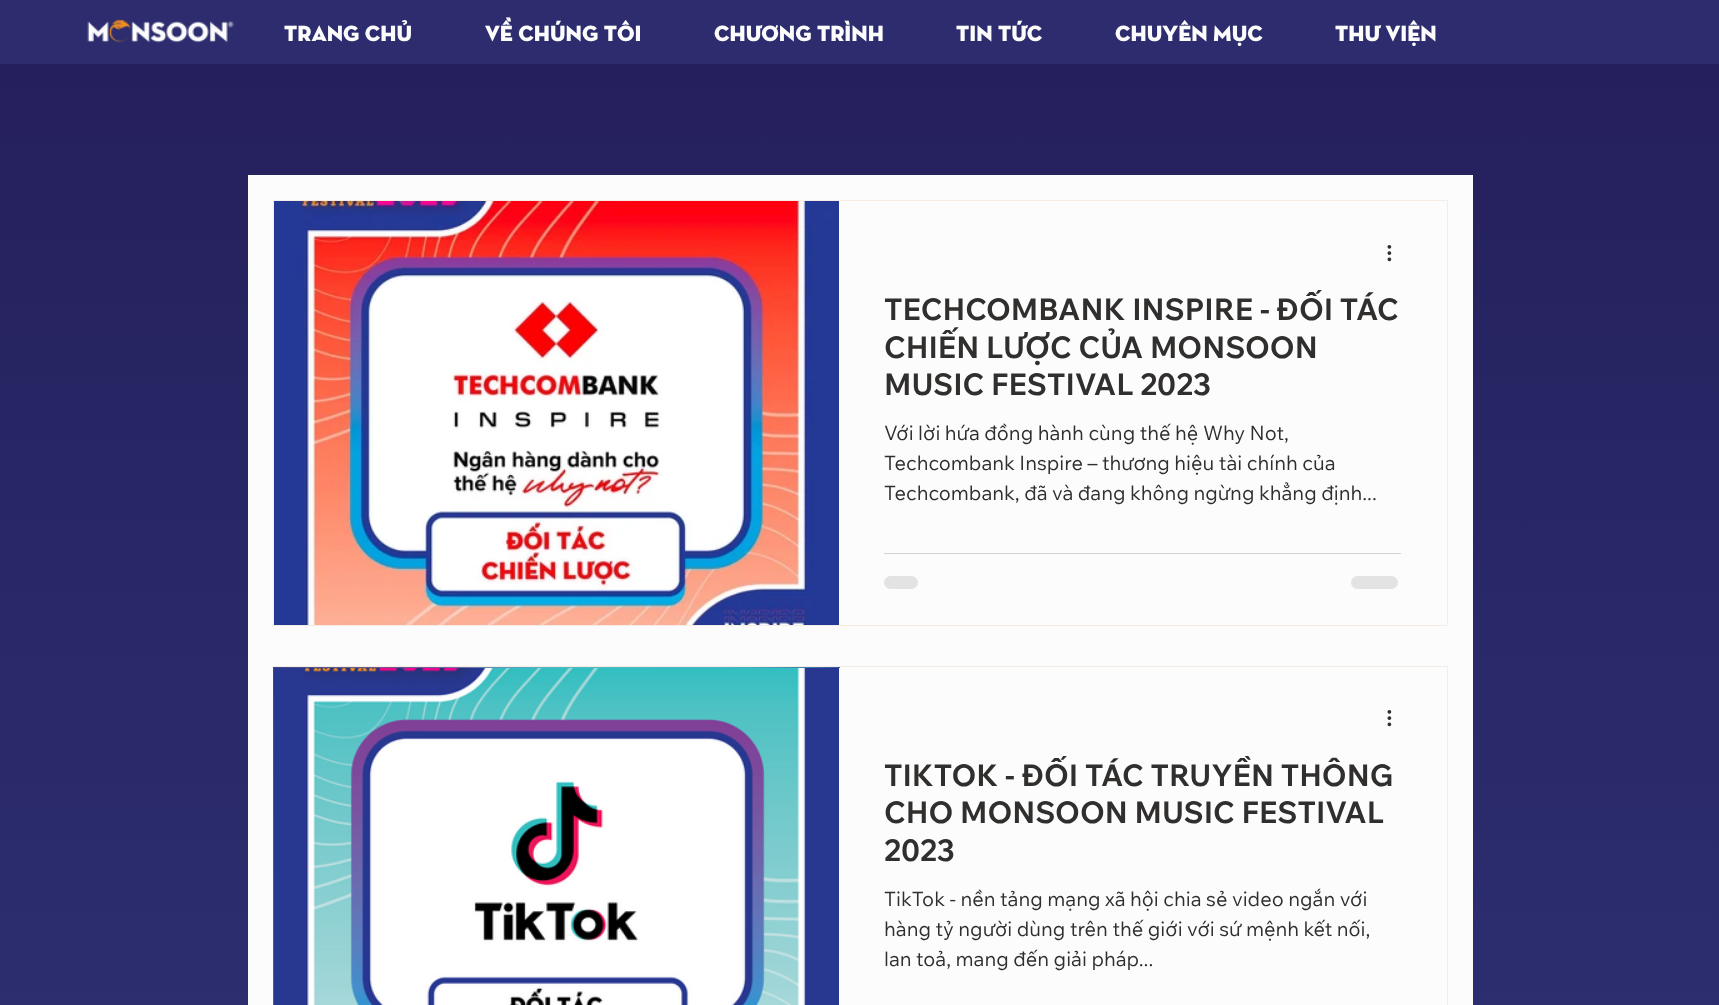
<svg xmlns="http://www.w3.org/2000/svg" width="1719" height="1005">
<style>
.a{font:22.5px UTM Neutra;fill:#fcfcfc}
.b{font:bold 30px Wix Madefor Text;fill:#312f2e}
.c{font:20px Wix Madefor Text;fill:#312f2e}
</style>
<defs>
<linearGradient id="g1" gradientUnits="userSpaceOnUse" x1="860" y1="64" x2="860" y2="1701"><stop offset="0" stop-color="#25205d"/><stop offset="0.8" stop-color="#2f3377"/><stop offset="1" stop-color="#2f3269"/></linearGradient>
<clipPath id="clip1"><path d="M884 290h517v113H884z"/></clipPath>
<clipPath id="clip2"><path d="M884 756h517v113H884z"/></clipPath>
</defs>
<rect width="100%" height="100%" fill="#fff"/>
<path fill="#2c2c6e" d="M0 0h1719v64H0z"/>
<image href="1.png" x="87" y="18" width="147" height="25"/>
<path fill="url(#g1)" d="M0 64h1719v941H0z"/>
<path fill="#fcfcfc" d="M248 175h1225v830H248z"/>
<path fill="none" stroke="#f5ede5" d="M273.5 200.5h1174v425H273.5z"/>
<image href="2.png" x="274" y="201" width="565" height="424"/>
<image href="3.png" x="1387" y="245" width="5" height="17"/>
<path fill="#d3d3d3" d="M884 553h517v1H884z"/>
<rect fill="#e4e3e3" x="884" y="576" width="34" height="13" rx="6.5"/>
<rect fill="#e4e3e3" x="1351" y="576" width="47" height="13" rx="6.5"/>
<path fill="none" stroke="#f5ede5" d="M273.5 666.5h1174v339H273.5z"/>
<image href="4.png" x="273" y="667" width="567" height="338"/>
<image href="5.png" x="274" y="668" width="565" height="337"/>
<path fill="#fcfcfc" d="M839 668h1v337H839z"/>
<image href="3.png" x="1387" y="710" width="5" height="17"/>
<text class="a" x="284" y="41">TRANG CHỦ</text>
<text class="a" x="485" y="41">VỀ CHÚNG TÔI</text>
<text class="a" x="714" y="41">CHƯƠNG TRÌNH</text>
<text class="a" x="956" y="41">TIN TỨC</text>
<text class="a" x="1115" y="41">CHUYÊN MỤC</text>
<text class="a" x="1335" y="41">THƯ VIỆN</text>
<g clip-path="url(#clip1)">
<text class="b" x="884" y="320">TECHCOMBANK INSPIRE - ĐỐI TÁC</text>
</g>
<text class="b" x="884" y="358">CHIẾN LƯỢC CỦA MONSOON</text>
<text class="b" x="884" y="395">MUSIC FESTIVAL 2023</text>
<text class="c" x="884" y="440">Với lời hứa đồng hành cùng thế hệ Why Not,</text>
<text class="c" x="884" y="470">Techcombank Inspire – thương hiệu tài chính của</text>
<text class="c" x="884" y="500">Techcombank, đã và đang không ngừng khẳng định...</text>
<g clip-path="url(#clip2)">
<text class="b" x="884" y="786">TIKTOK - ĐỐI TÁC TRUYỀN THÔNG</text>
</g>
<text class="b" x="884" y="823">CHO MONSOON MUSIC FESTIVAL</text>
<text class="b" x="884" y="861">2023</text>
<text class="c" x="884" y="906">TikTok - nền tảng mạng xã hội chia sẻ video ngắn với</text>
<text class="c" x="884" y="936">hàng tỷ người dùng trên thế giới với sứ mệnh kết nối,</text>
<text class="c" x="884" y="966">lan toả, mang đến giải pháp...</text>
</svg>
